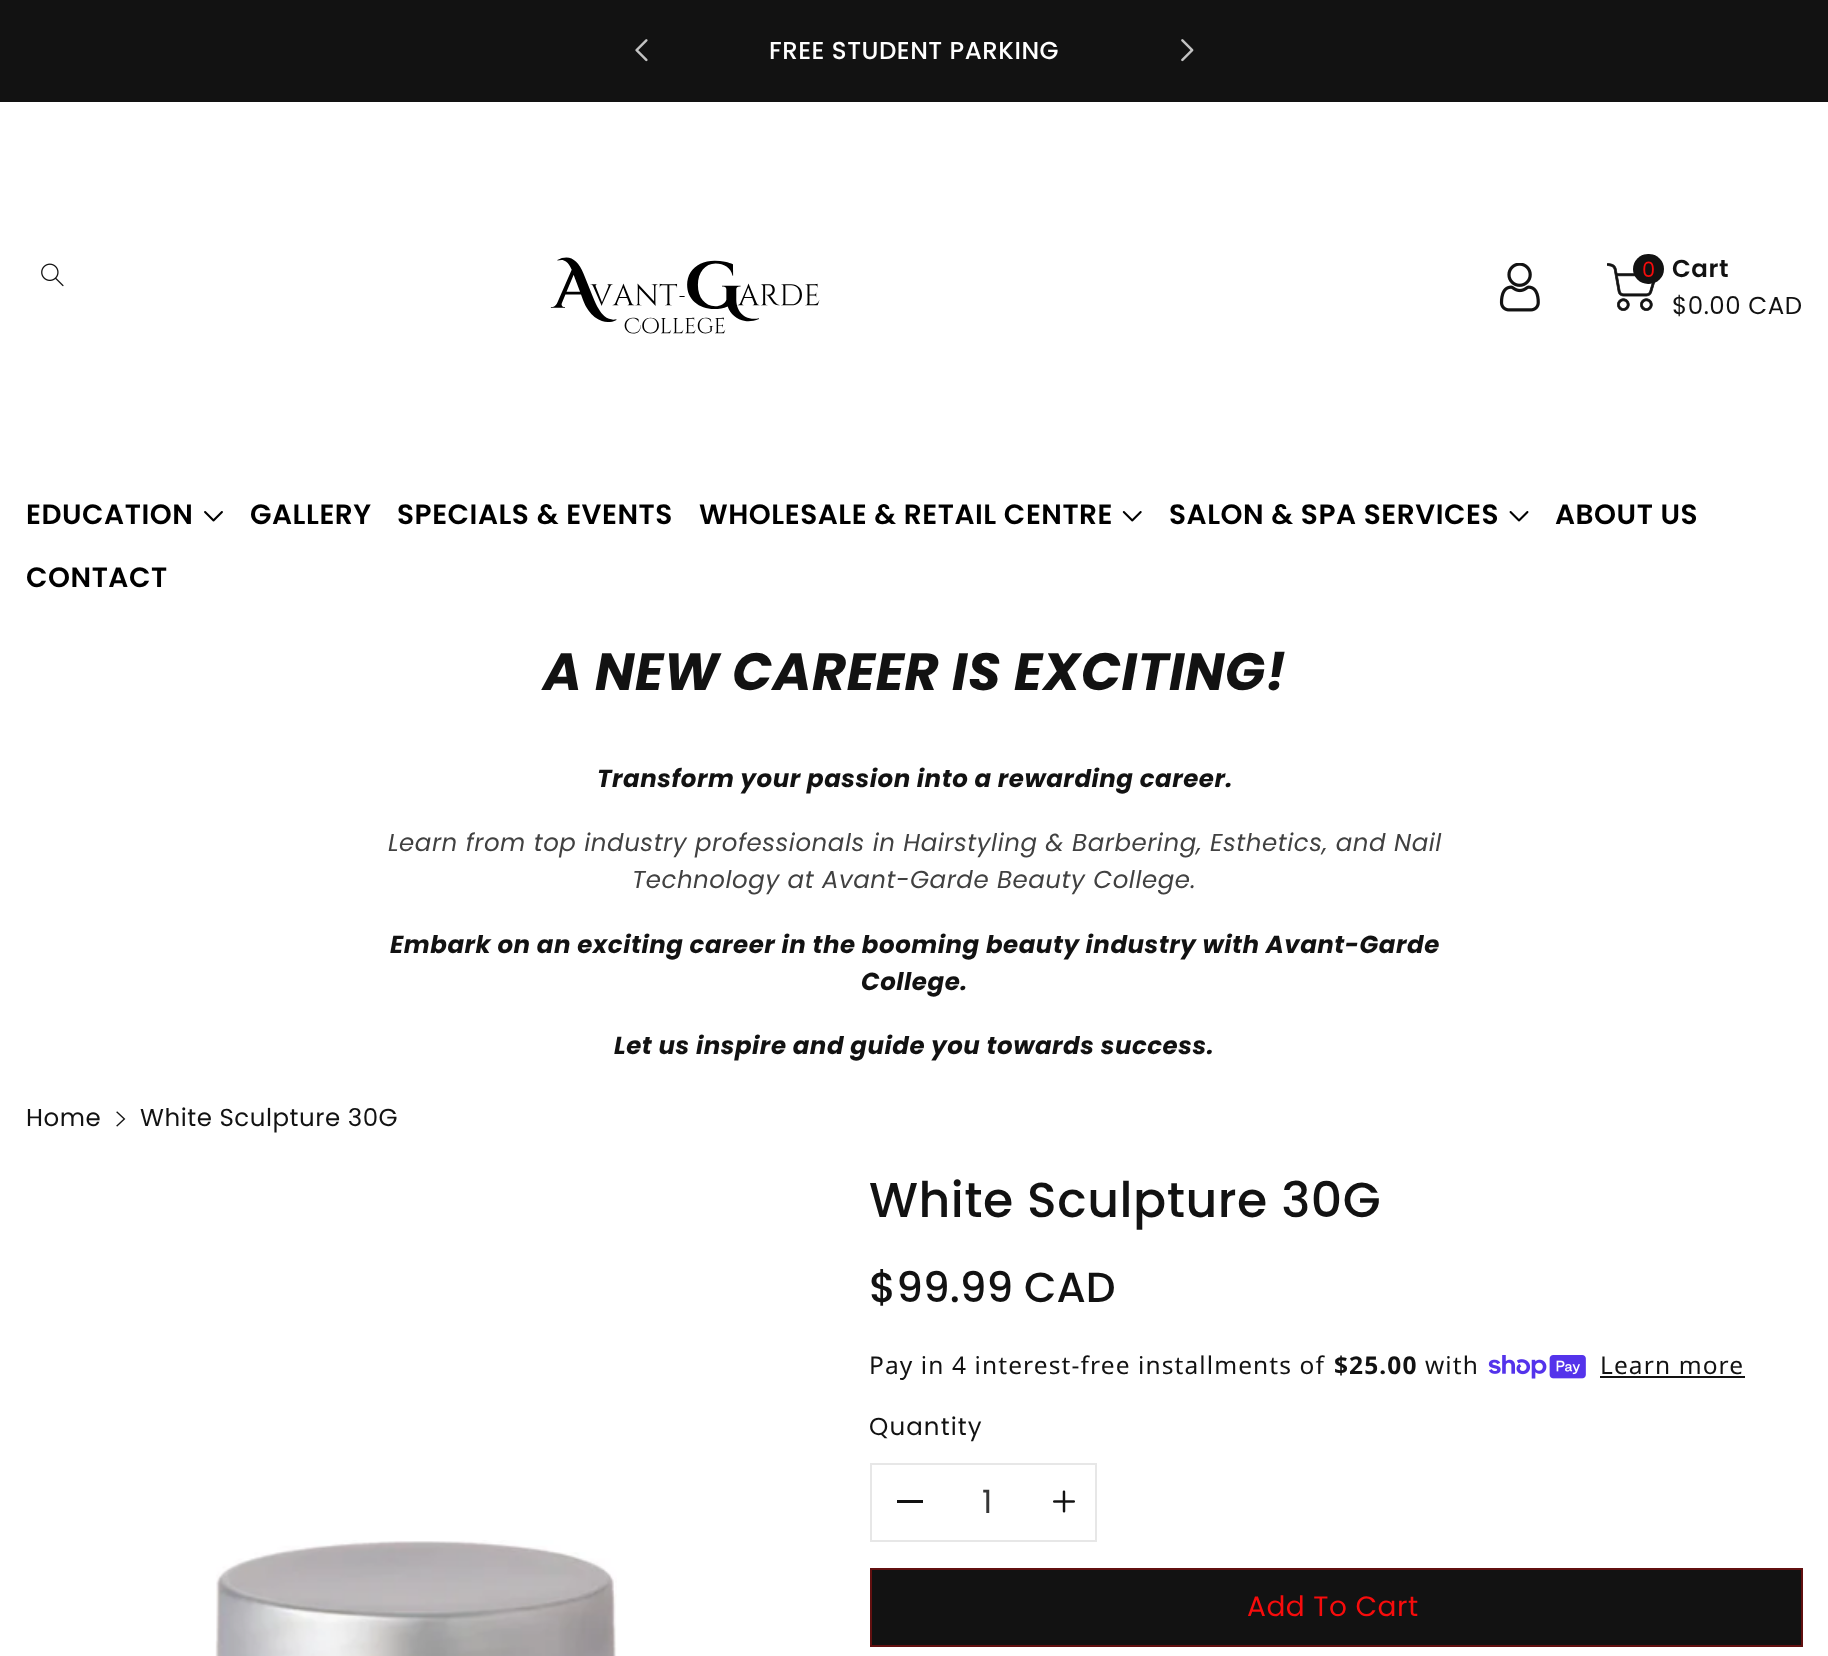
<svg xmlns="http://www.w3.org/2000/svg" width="1828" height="1656">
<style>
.a{font:500 24.5px Poppins;letter-spacing:0.53px;fill:#fff}
.b{font:21px Poppins;letter-spacing:0.53px;fill:#f70c0c}
.c{font:600 24.5px Poppins;letter-spacing:0.53px;fill:#121212}
.d{font:24.5px Poppins;letter-spacing:0.53px;fill:#121212}
.e{font:600 28px Poppins;letter-spacing:0.53px;fill:#000}
.f{font:italic bold 52.5px Poppins;letter-spacing:0.53px;fill:#121212}
.g{font:italic bold 24.5px Poppins;letter-spacing:0.53px;fill:#121212}
.h{font:italic 24.5px Poppins;letter-spacing:0.53px;fill:#414141}
.i{font:500 49px Poppins;letter-spacing:0.53px;fill:#121212}
.j{font:500 42px Poppins;fill:#121212}
.k{font:24.5px Noto Sans;letter-spacing:1.1px;fill:#121212}
.l{font:bold 24.5px Noto Sans;letter-spacing:1.1px;fill:#121212}
.m{font:24.5px Poppins;letter-spacing:1.1px;fill:#121212}
.n{font:32px Poppins;fill:#363636}
.o{font:28px Poppins;letter-spacing:0.53px;fill:#f70c0c}
</style>
<rect width="100%" height="100%" fill="#fff"/>
<path fill="#121212" d="M0 0h1828v102H0z"/>
<image href="1.png" x="635" y="39" width="13" height="23"/>
<image href="2.png" x="1181" y="39" width="13" height="23"/>
<image href="3.png" x="41" y="263" width="23" height="24"/>
<image href="4.png" x="550" y="257" width="270" height="77"/>
<image href="5.png" x="1499" y="263" width="41" height="49"/>
<image href="6.png" x="1607" y="263" width="49" height="48"/>
<rect fill="#121212" x="1633" y="254" width="31" height="30" rx="15"/>
<image href="7.png" x="204" y="511" width="19" height="11"/>
<image href="8.png" x="1122" y="511" width="20" height="11"/>
<image href="9.png" x="1509" y="511" width="20" height="11"/>
<image href="10.png" x="116" y="1111" width="10" height="16"/>
<image href="11.png" x="215" y="1540" width="402" height="116"/>
<image href="12.png" x="1488" y="1355" width="98" height="24"/>
<path fill="#121212" d="M1600 1376h145v2H1600z"/>
<path fill="#121212" d="M897 1500h26v3H897z"/>
<image href="13.png" x="1053" y="1490" width="22" height="23"/>
<path fill="none" stroke="#e7e7e7" stroke-width="2" d="M871 1464h225v77H871z"/>
<path fill="#121212" d="M872 1570h929v75H872z"/>
<path fill="none" stroke="#621010" stroke-width="2" d="M871 1569h931v77H871z"/>
<text class="a" x="769" y="59">FREE STUDENT PARKING</text>
<text class="b" x="1642" y="277">0</text>
<text class="c" x="1672" y="277">Cart</text>
<text class="d" x="1672" y="314">$0.00 CAD</text>
<text class="e" x="26" y="524">EDUCATION</text>
<text class="e" x="250" y="524">GALLERY</text>
<text class="e" x="397" y="524">SPECIALS &amp; EVENTS</text>
<text class="e" x="699" y="524">WHOLESALE &amp; RETAIL CENTRE</text>
<text class="e" x="1169" y="524">SALON &amp; SPA SERVICES</text>
<text class="e" x="1555" y="524">ABOUT US</text>
<text class="e" x="26" y="587">CONTACT</text>
<text class="f" x="543" y="690">A NEW CAREER IS EXCITING!</text>
<text class="g" x="597" y="787">Transform your passion into a rewarding career.</text>
<text class="h" x="388" y="851">Learn from top industry professionals in Hairstyling &amp; Barbering, Esthetics, and Nail</text>
<text class="h" x="632" y="888">Technology at Avant-Garde Beauty College.</text>
<text class="g" x="390" y="953">Embark on an exciting career in the booming beauty industry with Avant-Garde</text>
<text class="g" x="861" y="990">College.</text>
<text class="g" x="614" y="1054">Let us inspire and guide you towards success.</text>
<text class="d" x="26" y="1126">Home</text>
<text class="d" x="140" y="1126">White Sculpture 30G</text>
<text class="i" x="869" y="1217">White Sculpture 30G</text>
<text class="j" x="869" y="1302">$99.99 CAD</text>
<text class="k" x="869" y="1374">Pay in 4 interest-free installments of</text>
<text class="l" x="1334" y="1374">$25.00</text>
<text class="k" x="1425" y="1374">with</text>
<text class="k" x="1600" y="1374">Learn more</text>
<text class="m" x="869" y="1435">Quantity</text>
<text class="n" x="982" y="1513">1</text>
<text class="o" x="1247" y="1616">Add To Cart</text>
</svg>
